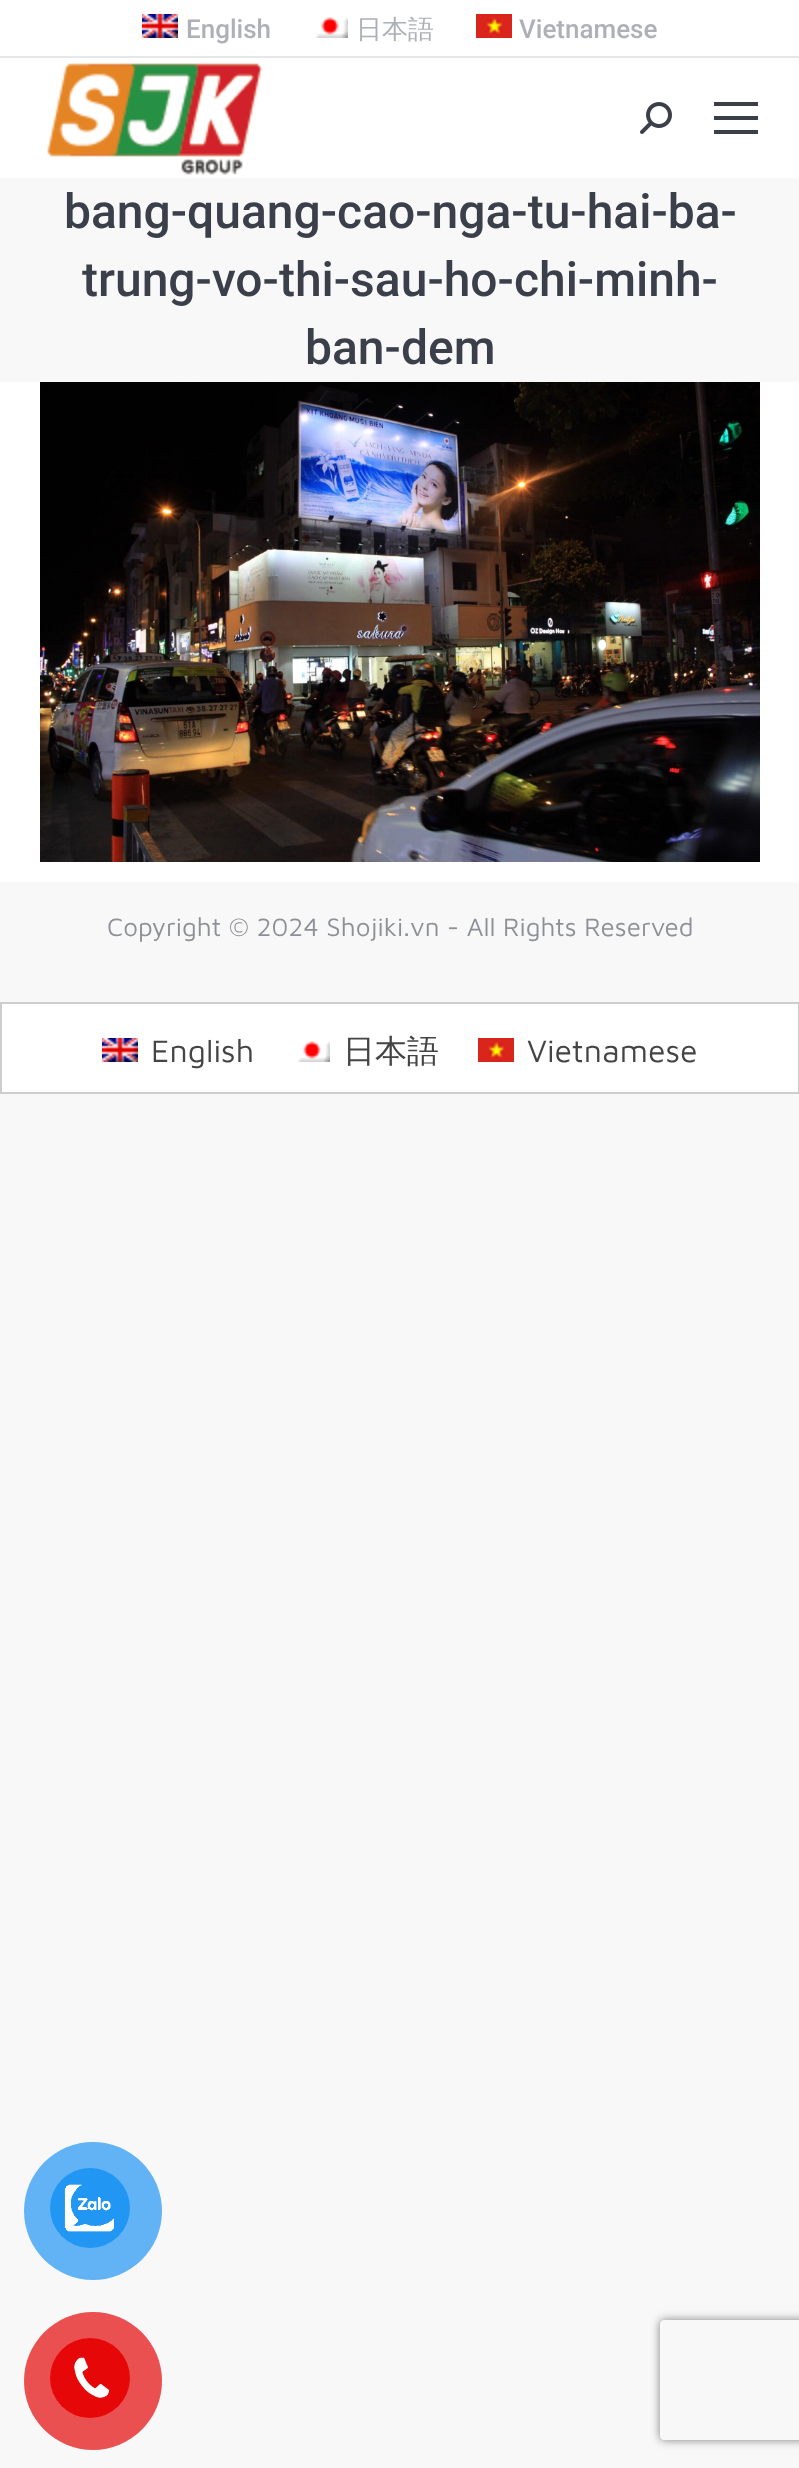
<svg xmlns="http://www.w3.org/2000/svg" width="799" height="2468">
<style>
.a{font:500 26px Roboto;fill:#adb0b6}
.b{font:500 26px WenQuanYi Zen Hei;fill:#adb0b6}
.c{font:500 48px Roboto;fill:#3b3f4a}
.d{font:26px Maven Pro;fill:#8d9095}
.e{font:32px Maven Pro;fill:#444}
.f{font:500 32px WenQuanYi Zen Hei;fill:#444}
</style>
<defs>
<clipPath id="clip1"><path d="M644 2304h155v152h-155zm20 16h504c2 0 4 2 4 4v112c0 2-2 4-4 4h-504c-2 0-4-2-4-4v-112c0-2 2-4 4-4z" clip-rule="evenodd"/></clipPath>
</defs>
<rect width="100%" height="100%" fill="#f8f8f9"/>
<path fill="#fff" d="M0 0h799v882H0z"/>
<image href="1.png" x="142" y="14" width="36" height="24"/>
<image href="2.png" x="315" y="17" width="33" height="21"/>
<image href="3.png" x="476" y="14" width="36" height="24"/>
<path fill="#e6e7e9" d="M0 56h799v2H0z"/>
<image href="4.png" x="47" y="63" width="216" height="112"/>
<image href="5.png" x="640" y="102" width="32" height="32"/>
<path fill="#3b3f4a" d="M714 102h44v4H714z"/>
<path fill="#3b3f4a" d="M714 116h44v4H714z"/>
<path fill="#3b3f4a" d="M714 130h44v4H714z"/>
<path fill="#f8f8f9" d="M0 178h799v204H0z"/>
<image href="6.png" x="40" y="382" width="720" height="480"/>
<path fill="#fff" stroke="#cdcdcd" stroke-width="2" d="M1 1003h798v90H1z"/>
<image href="1.png" x="102" y="1038" width="36" height="24"/>
<image href="2.png" x="297" y="1041" width="33" height="21"/>
<image href="3.png" x="478" y="1038" width="36" height="24"/>
<circle fill="#62b3f5" cx="93" cy="2211" r="69"/>
<circle fill="#2196f3" cx="90" cy="2208" r="40"/>
<image href="7.png" x="64" y="2184" width="50" height="48"/>
<circle fill="#eb5050" cx="93" cy="2381" r="69"/>
<circle fill="#e60808" cx="90" cy="2378" r="40"/>
<image href="8.png" x="74" y="2357" width="35" height="41"/>
<g clip-path="url(#clip1)">
<rect fill="#808080" filter="blur(5px)" x="660" y="2320" width="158" height="120" rx="4"/>
</g>
<text class="a" x="186" y="38">English</text>
<text class="b" x="356" y="38">日本語</text>
<text class="a" x="519" y="38">Vietnamese</text>
<text class="c" x="64" y="228">bang-quang-cao-nga-tu-hai-ba-</text>
<text class="c" x="82" y="296">trung-vo-thi-sau-ho-chi-minh-</text>
<text class="c" x="305" y="364">ban-dem</text>
<text class="d" x="107" y="936">Copyright © 2024 Shojiki.vn - All Rights Reserved</text>
<text class="e" x="151" y="1062">English</text>
<text class="f" x="343" y="1062">日本語</text>
<text class="e" x="527" y="1062">Vietnamese</text>
</svg>
